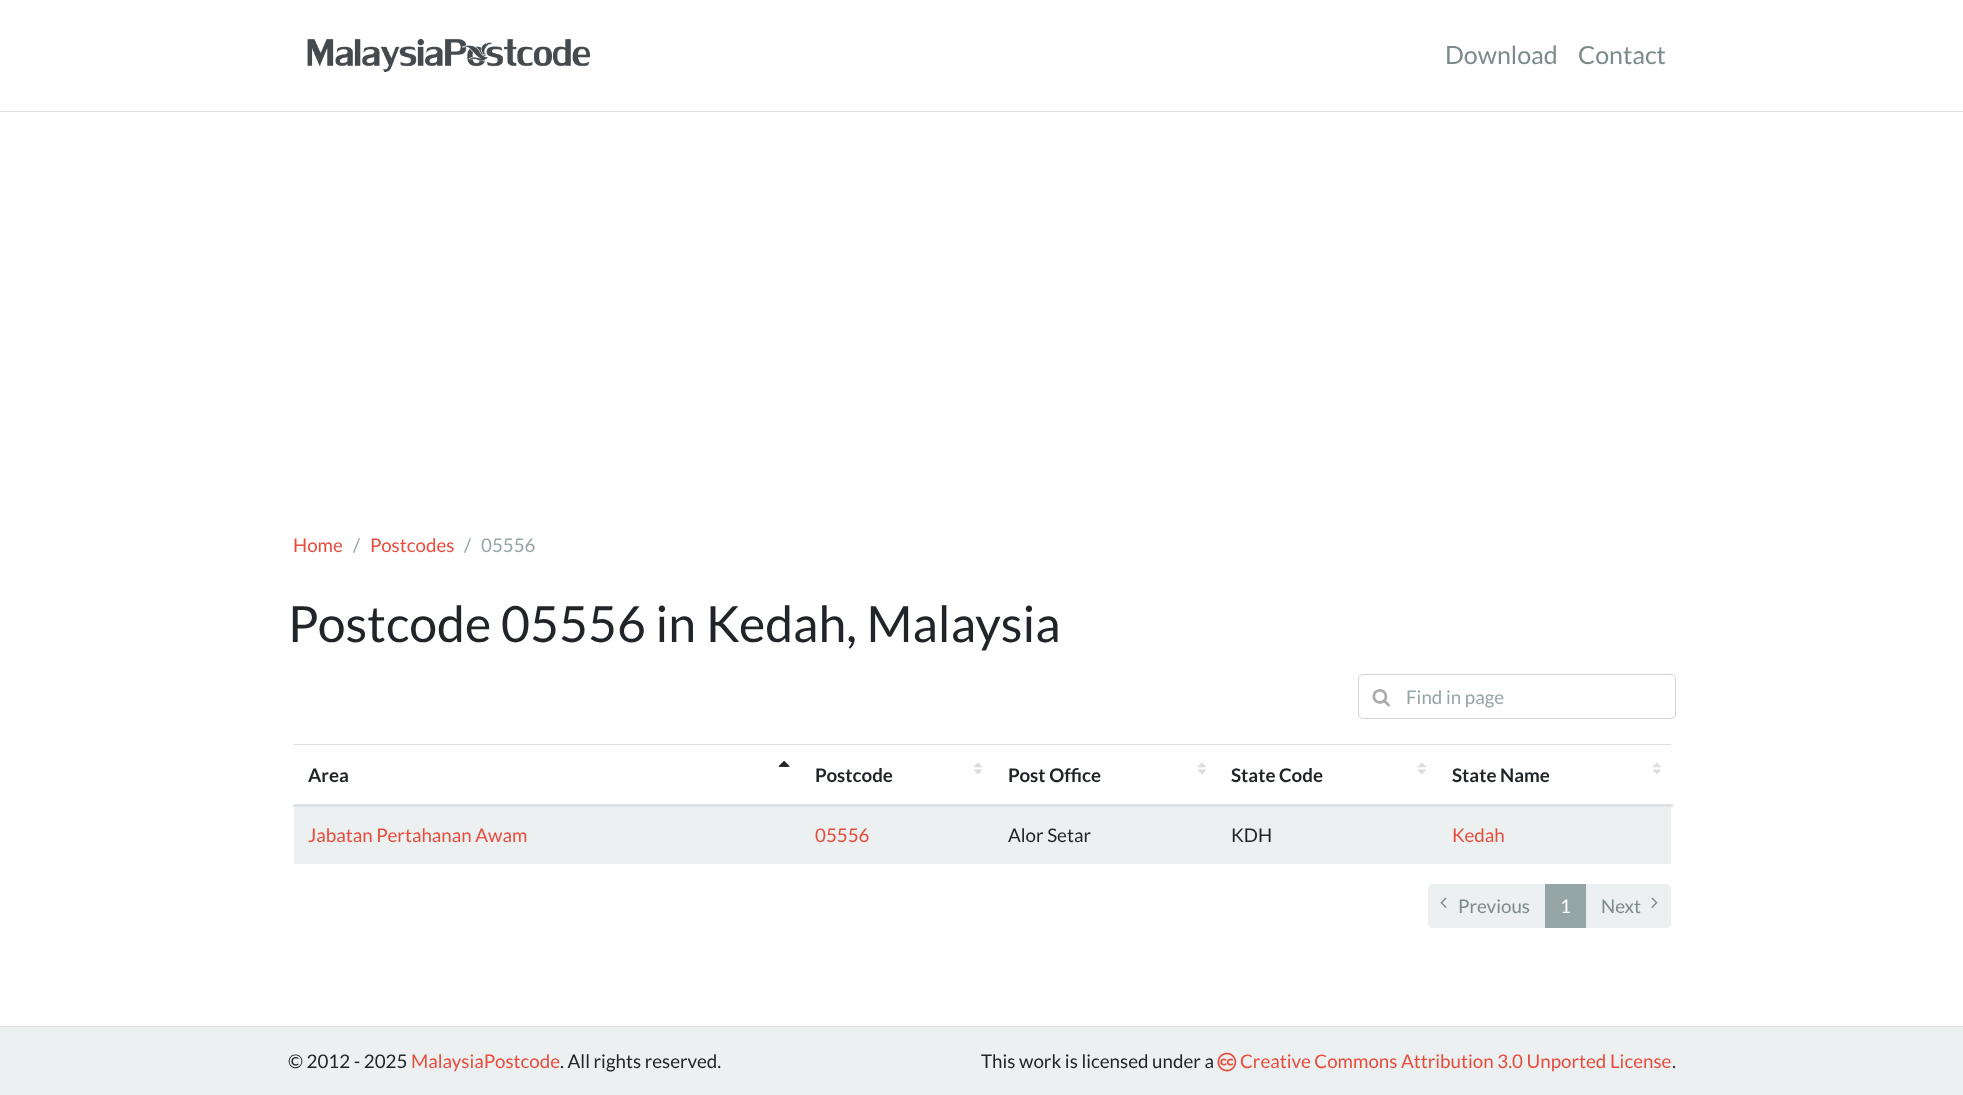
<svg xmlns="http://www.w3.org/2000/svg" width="1963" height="1095">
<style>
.a{font:25px Lato;fill:#7b8a8b}
.b{font:18.75px Lato;fill:#e74c3c}
.c{font:18.75px Lato;fill:#95a5a6}
.d{font:50px Lato;fill:#212529}
.e{font:bold 18.75px Lato;fill:#212529}
.f{font:18.75px Lato;fill:#212529}
.g{font:18.75px Lato;fill:#7b8a8b}
.h{font:18.75px Lato;fill:#fff}
</style>
<rect width="100%" height="100%" fill="#fff"/>
<path fill="#dee2e6" d="M0 111h1963v1H0z"/>
<image href="1.png" x="307" y="38" width="283" height="34"/>
<rect fill="none" stroke="#ced4da" x="1358.5" y="674.5" width="317" height="44" rx="4.5"/>
<image href="2.png" x="1372" y="689" width="18" height="18"/>
<image href="3.png" x="778" y="761" width="12" height="6"/>
<image href="4.png" x="974" y="762" width="9" height="12"/>
<image href="5.png" x="1197" y="762" width="9" height="13"/>
<image href="5.png" x="1417" y="762" width="9" height="13"/>
<path fill="#dee2e6" d="M293 744h1378v1H293z"/>
<path fill="#dee2e6" d="M293 804h1380v3H293z"/>
<image href="5.png" x="1652" y="762" width="9" height="13"/>
<path fill="#ecf0f1" d="M294 807h1377v57H294z"/>
<path fill="#ecf0f1" d="M1433 884h112v44h-112c-3 0-5-2-5-5v-34c0-3 2-5 5-5z"/>
<image href="6.png" x="1440" y="897" width="7" height="11"/>
<path fill="#95a5a6" d="M1545 884h41v44H1545z"/>
<path fill="#ecf0f1" d="M1586 884h80c3 0 5 2 5 5v34c0 3-2 5-5 5h-80z"/>
<image href="7.png" x="1651" y="897" width="7" height="11"/>
<path fill="#ecf0f1" d="M0 1027h1963v68H0z"/>
<path fill="#dee2e6" d="M0 1026h1963v1H0z"/>
<image href="8.png" x="1217" y="1052" width="20" height="20"/>
<text class="a" x="1445" y="64">Download</text>
<text class="a" x="1578" y="64">Contact</text>
<text class="b" x="293" y="552">Home</text>
<text class="c" x="353" y="552">/</text>
<text class="b" x="370" y="552">Postcodes</text>
<text class="c" x="464" y="552">/</text>
<text class="c" x="481" y="552">05556</text>
<text class="d" x="288" y="642">Postcode 05556 in Kedah, Malaysia</text>
<text class="c" x="1406" y="704">Find in page</text>
<text class="e" x="308" y="782">Area</text>
<text class="e" x="815" y="782">Postcode</text>
<text class="e" x="1008" y="782">Post Office</text>
<text class="e" x="1231" y="782">State Code</text>
<text class="e" x="1452" y="782">State Name</text>
<text class="b" x="308" y="842">Jabatan Pertahanan Awam</text>
<text class="b" x="815" y="842">05556</text>
<text class="f" x="1008" y="842">Alor Setar</text>
<text class="f" x="1231" y="842">KDH</text>
<text class="b" x="1452" y="842">Kedah</text>
<text class="g" x="1458" y="913">Previous</text>
<text class="h" x="1560" y="913">1</text>
<text class="g" x="1601" y="913">Next</text>
<text class="f" x="288" y="1068">© 2012 - 2025</text>
<text class="b" x="411" y="1068">MalaysiaPostcode</text>
<text class="f" x="560" y="1068">. All rights reserved.</text>
<text class="f" x="981" y="1068">This work is licensed under a</text>
<text class="b" x="1240" y="1068">Creative Commons Attribution 3.0 Unported License</text>
<text class="f" x="1672" y="1068">.</text>
</svg>
